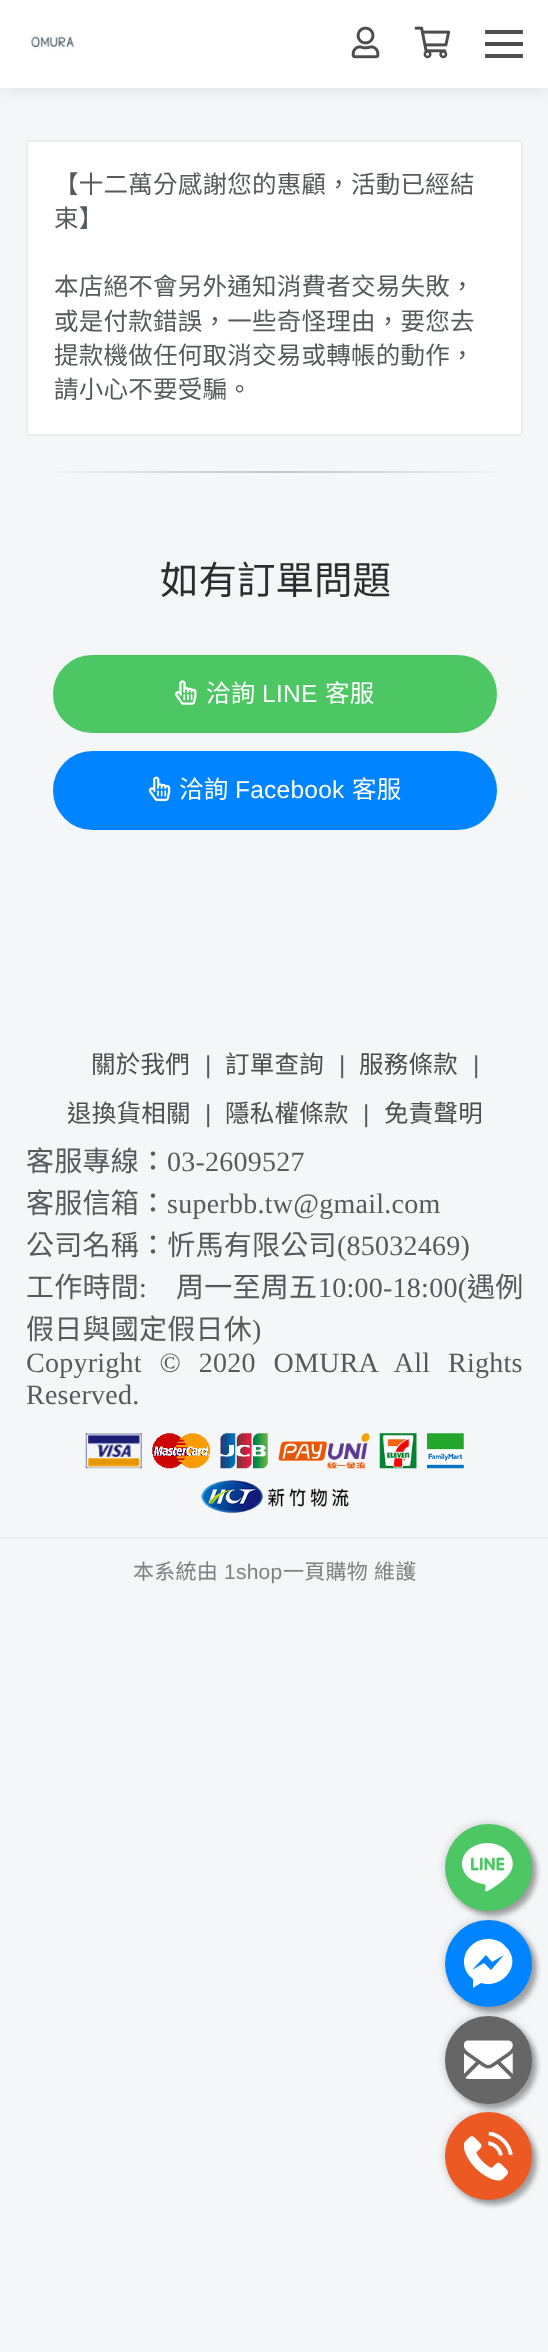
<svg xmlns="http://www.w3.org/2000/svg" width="548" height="2352">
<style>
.a{font:24.5px Noto Sans CJK TC;letter-spacing:0.25px;fill:#575a5d}
.b{font:38.5px Noto Sans CJK TC;fill:#2c2d2f}
.c{font:24.5px Noto Sans CJK TC;letter-spacing:0.25px;fill:#fff}
.d{font:24.5px Liberation Sans;letter-spacing:0.25px;fill:#fff}
.e{font:24.5px Noto Sans CJK TC;letter-spacing:0.25px;fill:#4d4d4d}
.f{font:24.5px Liberation Sans;letter-spacing:0.25px;fill:#575a5d}
.g{font:28px Noto Sans CJK TC;letter-spacing:0.25px;fill:#575a5d}
.h{font:28px Liberation Serif;letter-spacing:0.25px;fill:#575a5d}
.i{font:21px Noto Sans CJK TC;letter-spacing:0.25px;fill:#808080}
.j{font:21px Liberation Sans;letter-spacing:0.25px;fill:#808080}
</style>
<defs>
<linearGradient id="g1" gradientUnits="userSpaceOnUse" x1="26" y1="472" x2="523" y2="472"><stop offset="0" stop-color="#f5f6f7"/><stop offset="0.5" stop-color="#c4c5c6"/><stop offset="1" stop-color="#f5f6f7"/></linearGradient>
</defs>
<rect width="100%" height="100%" fill="#f5f6f7"/>
<path fill="#0000001a" filter="blur(9px)" d="M0 0h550v88H0z"/>
<path fill="#fff" d="M0 0h548v88H0z"/>
<image href="1.png" x="30" y="31" width="45" height="19"/>
<image href="2.png" x="351" y="26" width="29" height="33"/>
<image href="3.png" x="414" y="26" width="37" height="33"/>
<path fill="#4d4d4d" d="M485 30h38v4H485z"/>
<path fill="#4d4d4d" d="M485 42h38v4H485z"/>
<path fill="#4d4d4d" d="M485 54h38v4H485z"/>
<rect fill="#fff" stroke="#ededed" stroke-width="2" x="27" y="141" width="495" height="294" rx="1"/>
<path fill="url(#g1)" d="M39 471h471v2H39z"/>
<rect fill="#4cc764" stroke="#4cc764" stroke-width="2" x="54" y="656" width="442" height="76" rx="38"/>
<image href="4.png" x="175" y="680" width="22" height="25"/>
<rect fill="#0084ff" stroke="#0084ff" stroke-width="2" x="54" y="752" width="442" height="77" rx="38.5"/>
<image href="5.png" x="148" y="776" width="23" height="26"/>
<image href="6.png" x="85" y="1433" width="57" height="36"/>
<image href="7.png" x="152" y="1433" width="58" height="36"/>
<image href="8.png" x="220" y="1433" width="48" height="36"/>
<image href="9.png" x="278" y="1433" width="92" height="36"/>
<image href="10.png" x="379" y="1433" width="38" height="36"/>
<image href="11.png" x="427" y="1433" width="37" height="36"/>
<image href="12.png" x="201" y="1480" width="148" height="33"/>
<path fill="#eaebec" d="M0 1537h548v2H0z"/>
<rect fill="#0000004d" filter="blur(2.5px)" x="450" y="1829" width="87" height="87" rx="43.5"/>
<rect fill="#00000033" filter="blur(4.5px)" x="445" y="1824" width="87" height="87" rx="43.5"/>
<circle fill="#4cc764" cx="488.5" cy="1867.5" r="43.5"/>
<image href="13.png" x="462" y="1843" width="51" height="49"/>
<rect fill="#0000004d" filter="blur(2.5px)" x="450" y="1925" width="87" height="88" rx="43.5"/>
<rect fill="#00000033" filter="blur(4.5px)" x="445" y="1920" width="87" height="87" rx="43.5"/>
<circle fill="#0084ff" cx="488.5" cy="1963.5" r="43.5"/>
<path fill="#fff" d="M488 1939c-22 0-33 27-15 40v9l8-5c22 7 43-20 24-37c-4-5-10-7-17-7zm3 31l-7-7l-12 7l14-15l6 7l12-7z"/>
<rect fill="#0000004d" filter="blur(2.5px)" x="450" y="2021" width="87" height="88" rx="43.5"/>
<rect fill="#00000033" filter="blur(4.5px)" x="445" y="2016" width="87" height="88" rx="43.5"/>
<rect fill="#666" x="445" y="2016" width="87" height="88" rx="43.5"/>
<image href="14.png" x="464" y="2040" width="49" height="39"/>
<rect fill="#0000004d" filter="blur(2.5px)" x="450" y="2118" width="87" height="87" rx="43.5"/>
<rect fill="#00000033" filter="blur(4.5px)" x="445" y="2112" width="87" height="88" rx="43.5"/>
<rect fill="#ec5923" x="445" y="2112" width="87" height="88" rx="43.5"/>
<image href="15.png" x="464" y="2132" width="49" height="49"/>
<text class="a" x="54" y="193">【十二萬分感謝您的惠顧，活動已經結</text>
<text class="a" x="54" y="227">束】</text>
<text class="a" x="54" y="295">本店絕不會另外通知消費者交易失敗，</text>
<text class="a" x="54" y="330">或是付款錯誤，一些奇怪理由，要您去</text>
<text class="a" x="54" y="364">提款機做任何取消交易或轉帳的動作，</text>
<text class="a" x="54" y="398">請小心不要受騙。</text>
<text class="b" x="160" y="594">如有訂單問題</text>
<text class="c" x="206" y="702">洽詢</text>
<text class="d" x="262" y="702">LINE</text>
<text class="c" x="325" y="702">客服</text>
<text class="c" x="179" y="798">洽詢</text>
<text class="d" x="235" y="798">Facebook</text>
<text class="c" x="352" y="798">客服</text>
<text class="e" x="91" y="1073">關於我們</text>
<text class="f" x="205" y="1073">|</text>
<text class="e" x="225" y="1073">訂單查詢</text>
<text class="f" x="339" y="1073">|</text>
<text class="e" x="359" y="1073">服務條款</text>
<text class="f" x="473" y="1073">|</text>
<text class="e" x="67" y="1122">退換貨相關</text>
<text class="f" x="205" y="1122">|</text>
<text class="e" x="225" y="1122">隱私權條款</text>
<text class="f" x="363" y="1122">|</text>
<text class="e" x="384" y="1122">免責聲明</text>
<text class="g" x="26" y="1171">客服專線：</text>
<text class="h" x="167" y="1171">03-2609527</text>
<text class="g" x="26" y="1213">客服信箱：</text>
<text class="h" x="167" y="1213">superbb.tw@gmail.com</text>
<text class="g" x="26" y="1255">公司名稱：忻馬有限公司</text>
<text class="h" x="337" y="1255">(85032469)</text>
<text class="g" x="26" y="1297">工作時間</text>
<text class="h" x="139" y="1297">:</text>
<text class="g" x="176" y="1297">周一至周五</text>
<text class="h" x="318" y="1297">10:00-18:00(</text>
<text class="g" x="467" y="1297">遇例</text>
<text class="g" x="26" y="1339">假日與國定假日休</text>
<text class="h" x="252" y="1339">)</text>
<text class="h" x="26" y="1372" word-spacing="10.5">Copyright © 2020 OMURA All Rights</text>
<text class="h" x="26" y="1404">Reserved.</text>
<text class="i" x="133" y="1579">本系統由</text>
<text class="j" x="224" y="1579">1shop</text>
<text class="i" x="283" y="1579">一頁購物</text>
<text class="i" x="374" y="1579">維護</text>
</svg>
